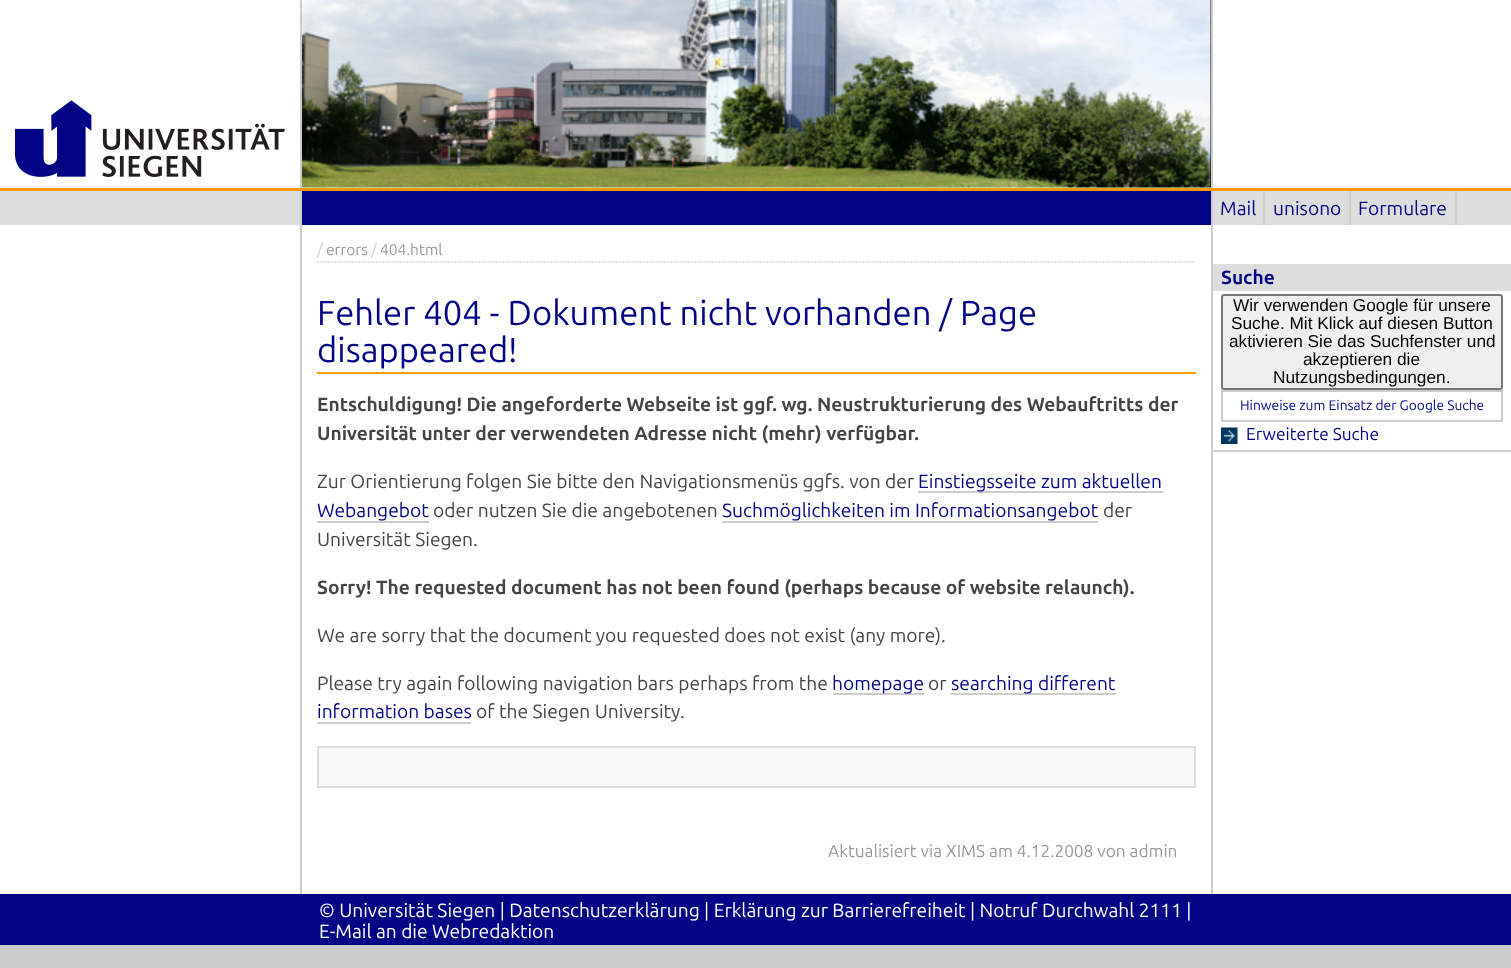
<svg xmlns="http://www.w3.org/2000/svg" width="1511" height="968">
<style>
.a{font:15.5px Ubuntu;fill:#ccc}
.b{font:15.5px Ubuntu;fill:#999}
.c{font:34.6px Ubuntu;fill:#030385}
.d{font:bold 19.2px Ubuntu;fill:#444}
.e{font:19.2px Ubuntu;fill:#444}
.f{font:19.2px Ubuntu;fill:#030385}
.g{font:17.25px Ubuntu;fill:#999}
.h{font:bold 19.2px Ubuntu;fill:#030385}
.i{font:17.25px Liberation Sans;fill:#000}
.j{font:13.8px Ubuntu;fill:#030385}
.k{font:17.25px Ubuntu;fill:#030385}
.l{font:19.2px Ubuntu;fill:#fff}
</style>
<rect width="100%" height="100%" fill="#ccc"/>
<path fill="#fff" d="M0 0h1511v894H0z"/>
<path fill="#ccc" d="M1212 450h299v2H1212z"/>
<path fill="#ccc" d="M1211 0h2v894H1211z"/>
<path fill="#ccc" d="M300 0h2v894H300z"/>
<path fill="#f90" d="M0 188h1511v3H0z"/>
<image href="1.png" x="15" y="100" width="270" height="77"/>
<path fill="#ddd" d="M0 191h300v34H0z"/>
<image href="2.png" x="302" y="0" width="909" height="188"/>
<path fill="#030385" d="M302 191h909v34H302z"/>
<path fill="none" stroke="#ccc" stroke-width="1.5" stroke-dasharray="1.5 1.5" d="M316.5 262h879"/>
<path fill="#f90" d="M317 372h879v2H317z"/>
<path fill="#ccc" d="M918 491h245v2H918z"/>
<path fill="#ccc" d="M317 521h112v2H317z"/>
<path fill="#ccc" d="M722 521h376v2H722z"/>
<path fill="#ccc" d="M833 693h91v2H833z"/>
<path fill="#ccc" d="M951 693h165v2H951z"/>
<path fill="#ccc" d="M317 722h154v2H317z"/>
<path fill="#f9f9f9" stroke="#ddd" stroke-width="2" d="M318 747h877v40H318z"/>
<path fill="#ddd" d="M1213 191h298v34H1213z"/>
<path fill="#ccc" d="M1263 191h2v34H1263z"/>
<path fill="#ccc" d="M1349 191h2v34H1349z"/>
<path fill="#ccc" d="M1455 191h2v34H1455z"/>
<path fill="#ddd" d="M1213 264h298v27H1213z"/>
<rect fill="#efefef" stroke="#767676" stroke-width="2" x="1222" y="295" width="280" height="94" rx="2"/>
<path fill="none" stroke="#ccc" stroke-width="2" d="M1222 391h280v30H1222z"/>
<image href="3.png" x="1221" y="427" width="17" height="17"/>
<path fill="#030385" d="M0 894h1511v51H0z"/>
<text class="a" x="317" y="255">/</text>
<text class="b" x="326" y="255">errors</text>
<text class="a" x="371" y="255">/</text>
<text class="b" x="380" y="255">404.html</text>
<text class="c" x="317" y="325">Fehler 404 - Dokument nicht vorhanden / Page</text>
<text class="c" x="317" y="362">disappeared!</text>
<text class="d" x="317" y="411">Entschuldigung! Die angeforderte Webseite ist ggf. wg. Neustrukturierung des Webauftritts der</text>
<text class="d" x="317" y="440">Universität unter der verwendeten Adresse nicht (mehr) verfügbar.</text>
<text class="e" x="317" y="488">Zur Orientierung folgen Sie bitte den Navigationsmenüs ggfs. von der</text>
<text class="f" x="918" y="488">Einstiegsseite zum aktuellen</text>
<text class="f" x="317" y="517">Webangebot</text>
<text class="e" x="433" y="517">oder nutzen Sie die angebotenen</text>
<text class="f" x="722" y="517">Suchmöglichkeiten im Informationsangebot</text>
<text class="e" x="1103" y="517">der</text>
<text class="e" x="317" y="546">Universität Siegen.</text>
<text class="d" x="317" y="594">Sorry! The requested document has not been found (perhaps because of website relaunch).</text>
<text class="e" x="317" y="642">We are sorry that the document you requested does not exist (any more).</text>
<text class="e" x="317" y="690">Please try again following navigation bars perhaps from the</text>
<text class="f" x="832" y="690">homepage</text>
<text class="e" x="928" y="690">or</text>
<text class="f" x="951" y="690">searching different</text>
<text class="f" x="317" y="718">information bases</text>
<text class="e" x="476" y="718">of the Siegen University.</text>
<text class="g" x="828" y="857">Aktualisiert via XIMS am 4.12.2008 von admin</text>
<text class="f" x="1220" y="215">Mail</text>
<text class="f" x="1273" y="215">unisono</text>
<text class="f" x="1358" y="215">Formulare</text>
<text class="h" x="1221" y="284">Suche</text>
<text class="i" x="1233" y="311">Wir verwenden Google für unsere</text>
<text class="i" x="1231" y="329">Suche. Mit Klick auf diesen Button</text>
<text class="i" x="1229" y="347">aktivieren Sie das Suchfenster und</text>
<text class="i" x="1303" y="365">akzeptieren die</text>
<text class="i" x="1273" y="383">Nutzungsbedingungen.</text>
<text class="j" x="1240" y="410">Hinweise zum Einsatz der Google Suche</text>
<text class="k" x="1246" y="440">Erweiterte Suche</text>
<text class="l" x="319" y="917">© Universität Siegen | Datenschutzerklärung | Erklärung zur Barrierefreiheit | Notruf Durchwahl 2111 |</text>
<text class="l" x="319" y="938">E-Mail an die Webredaktion</text>
</svg>
